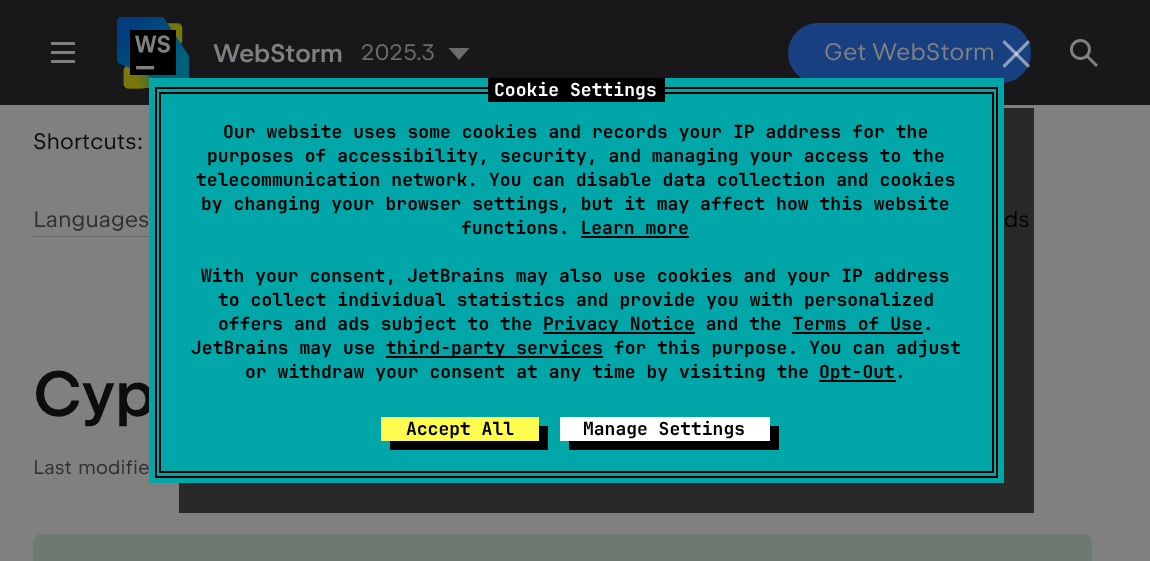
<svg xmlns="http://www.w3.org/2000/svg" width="1150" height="561">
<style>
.a{font:500 25.5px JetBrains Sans;letter-spacing:-0.25px;fill:#808080}
.b{font:22.5px JetBrains Sans;letter-spacing:0.05px;fill:#6b6b6b}
.c{font:24px JetBrains Sans;letter-spacing:0.05px;fill:#808080}
.d{font:22.5px JetBrains Sans;letter-spacing:0.05px;fill:#0d0d0e}
.e{font:22.5px JetBrains Sans;letter-spacing:0.05px;fill:#2f2f30}
.f{font:500 64px JetBrains Sans;fill:#0d0d0e}
.g{font:19.5px JetBrains Sans;letter-spacing:0.1px;fill:#2f2f30}
.h{font:bold 18px JetBrains Mono;letter-spacing:0.05px;fill:#fff}
.i{font:bold 18px JetBrains Mono;letter-spacing:0.05px;fill:#000}
.j{font:bold 18px JetBrains Mono;fill:#000}
</style>
<rect width="100%" height="100%" fill="#808080"/>
<path fill="#18181a" d="M0 0h1150v105H0z"/>
<image href="1.png" x="51" y="42" width="24" height="21"/>
<image href="2.png" x="117" y="17" width="72" height="72"/>
<path fill="#6b6b6b" d="M459 60l-10.5-12h21z"/>
<rect fill="#184080" x="788" y="23" width="243" height="60" rx="30"/>
<image href="3.png" x="1069" y="39" width="29" height="28"/>
<path fill="#696969" d="M33 236h116v1H33z"/>
<path fill="#6e7970" d="M42 534h1041c5 0 9 4 9 9v18h-1059v-18c0-5 4-9 9-9z"/>
<path fill="#ffffff80" d="M1002.5 65.5l25.5-25.5l2 2.5l-25.5 25.5z"/>
<path fill="#ffffff80" d="M1004.5 40l25.5 25.5l-2 2.5l-25.5-25.5z"/>
<text class="a" x="213" y="62">WebStorm</text>
<text class="b" x="361" y="60">2025.3</text>
<text class="c" x="824" y="60">Get WebStorm</text>
<text class="d" x="33" y="149">Shortcuts:</text>
<text class="e" x="33" y="227">Languages</text>
<text class="d" x="1004" y="227">ds</text>
<text class="f" x="33" y="416">Cyp</text>
<text class="g" x="33" y="474" word-spacing="1">Last modifie</text>
<path fill="#000000ad" d="M179 483v30h855v-405h-30v375z"/>
<path fill="#01a7a8" d="M149 78h855v405H149z"/>
<path fill="#000" d="M159 92h834v2H159z"/>
<path fill="#000" d="M992 92h2v381H992z"/>
<path fill="#000" d="M159 92h2v325H159z"/>
<path fill="#000" d="M155 87h843v2H155z"/>
<path fill="#000" d="M488 78h177v24H488z"/>
<text class="h" x="494" y="96">Cookie Settings</text>
<path fill="#000" d="M996 87h2v390H996z"/>
<path fill="#000" d="M155 87h2v329H155z"/>
<text class="i" x="223" y="138">Our website uses some cookies and records your IP address for the</text>
<text class="i" x="207" y="162">purposes of accessibility, security, and managing your access to the</text>
<text class="i" x="196" y="186">telecommunication network. You can disable data collection and cookies</text>
<text class="i" x="201" y="210">by changing your browser settings, but it may affect how this website</text>
<text class="i" x="461" y="234">functions. Learn more</text>
<path fill="#000" d="M581 236h108v2H581z"/>
<text class="i" x="201" y="282">With your consent, JetBrains may also use cookies and your IP address</text>
<text class="i" x="218" y="306">to collect individual statistics and provide you with personalized</text>
<text class="i" x="218" y="330">offers and ads subject to the</text>
<path fill="#000" d="M543 332h152v2H543z"/>
<text class="i" x="543" y="330">Privacy Notice and the Terms of Use.</text>
<path fill="#000" d="M792 332h131v2H792z"/>
<text class="i" x="191" y="354">JetBrains may use</text>
<path fill="#000" d="M386 356h217v2H386z"/>
<text class="i" x="386" y="354">third-party services for this purpose. You can adjust</text>
<text class="i" x="245" y="378">or withdraw your consent at any time by visiting the</text>
<path fill="#000" d="M819 380h77v2H819z"/>
<text class="i" x="819" y="378">Opt-Out.</text>
<path fill="#000" d="M159 471h834v2H159z"/>
<path fill="#000" d="M159 417h2v56H159z"/>
<path fill="#000" d="M155 476h843v2H155z"/>
<path fill="#000" d="M155 416h2v61H155z"/>
<path fill="#000" d="M390 441v9h158v-24h-10v15z"/>
<path fill="#fefc4f" d="M381 417h158v24H381z"/>
<text class="j" x="406" y="435">Accept All</text>
<path fill="#000" d="M569 441v9h210v-24h-9v15z"/>
<path fill="#fff" d="M560 417h210v24H560z"/>
<text class="j" x="583" y="435">Manage Settings</text>
</svg>
